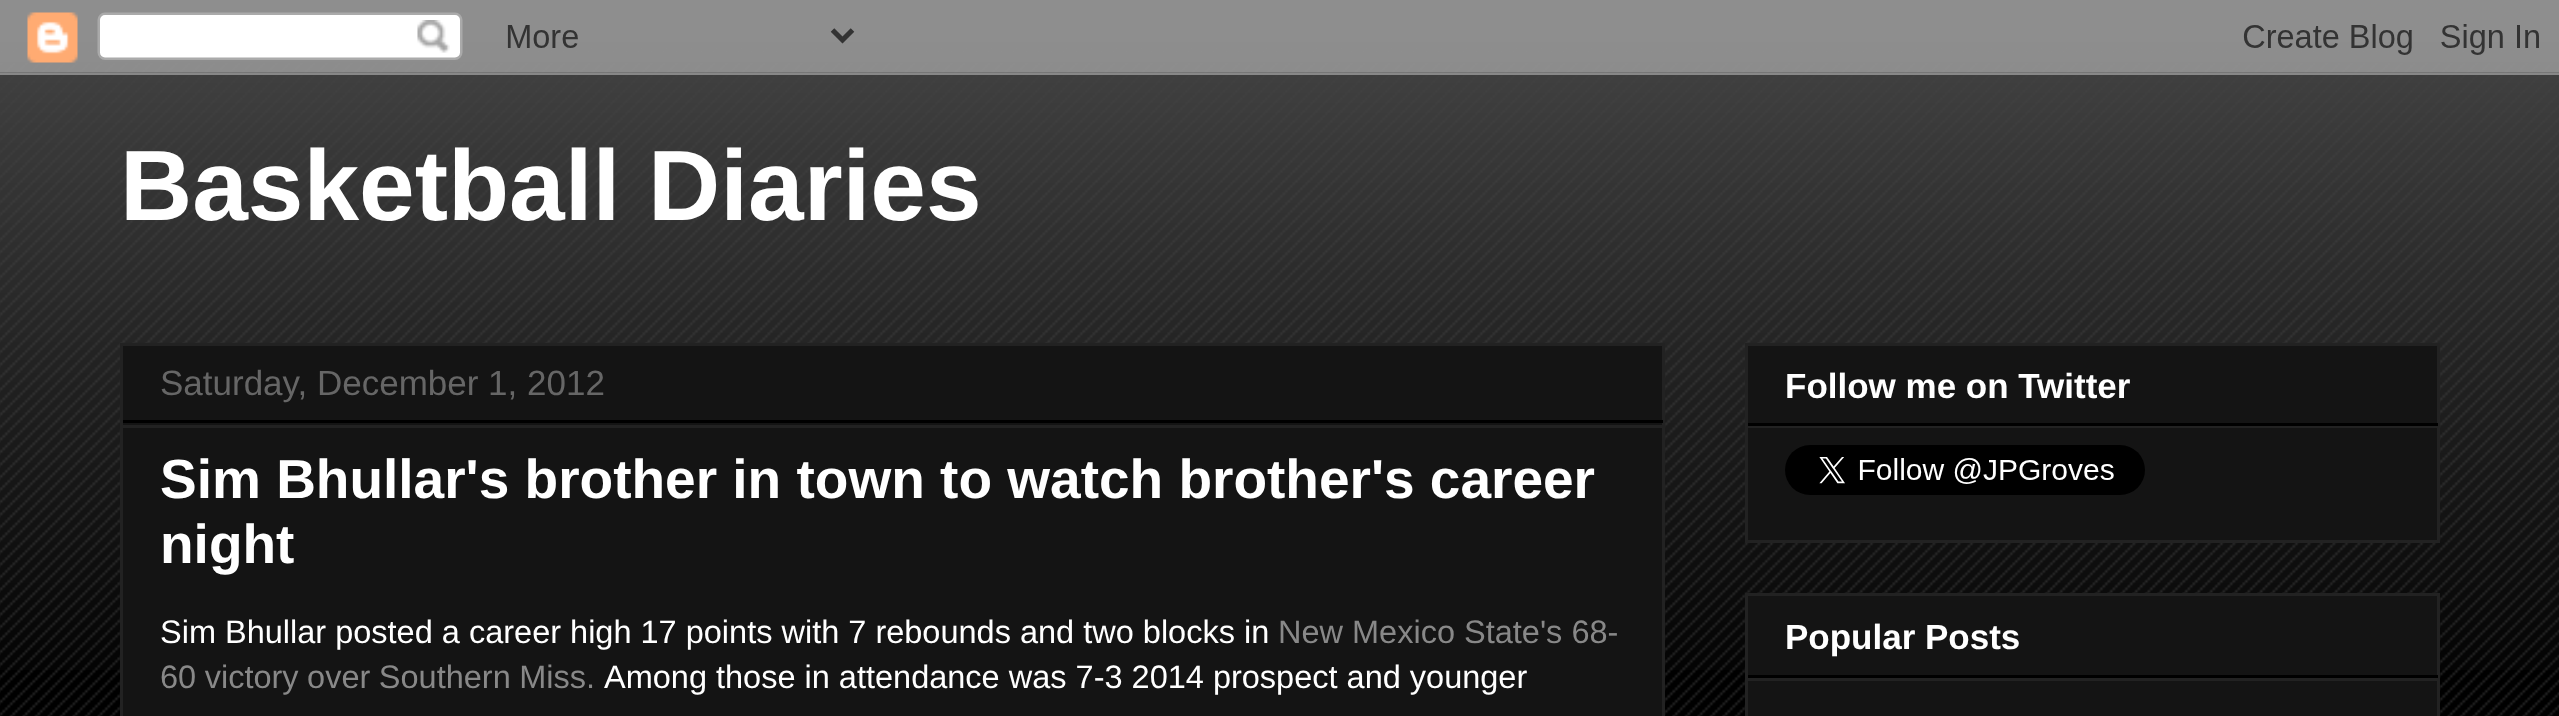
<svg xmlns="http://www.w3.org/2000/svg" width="2559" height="716">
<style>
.a{font:bold 100px Liberation Sans;fill:#fff}
.b{font:35px Liberation Sans;fill:#666}
.c{font:bold 55px Liberation Sans;fill:#fff}
.d{font:32.5px Liberation Sans;fill:#fff}
.e{font:32.5px Liberation Sans;fill:#888}
.f{font:bold 35px Liberation Sans;fill:#fff}
</style>
<rect width="100%" height="100%" fill="#000"/>
<image href="1.png" x="0" y="33" width="2559" height="683"/>
<image href="2.png" x="0" y="0" width="2559" height="670"/>
<image href="3.png" x="0" y="0" width="2559" height="75"/>
<path fill="#141414" stroke="#222" stroke-width="3" d="M121.5 344.5h1542v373H121.5z"/>
<path fill="#000" d="M123 420h1540v3H123z"/>
<path fill="#222" d="M123 425h1540v3H123z"/>
<path fill="#141414" stroke="#222" stroke-width="3" d="M1746.5 344.5h692v197H1746.5z"/>
<path fill="#000" d="M1748 423h690v3H1748z"/>
<path fill="#222" d="M1748 426h690v2H1748z"/>
<image href="4.png" x="1785" y="445" width="360" height="50"/>
<path fill="#141414" stroke="#222" stroke-width="3" d="M1746.5 594.5h692v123H1746.5z"/>
<path fill="#000" d="M1748 675h690v3H1748z"/>
<path fill="#222" d="M1748 678h690v3H1748z"/>
<text class="a" x="120" y="220">Basketball Diaries</text>
<text class="b" x="160" y="395">Saturday, December 1, 2012</text>
<text class="c" x="160" y="498">Sim Bhullar's brother in town to watch brother's career</text>
<text class="c" x="160" y="563">night</text>
<text class="d" x="160" y="643">Sim Bhullar posted a career high 17 points with 7 rebounds and two blocks in</text>
<text class="e" x="1278" y="643">New Mexico State's 68-</text>
<text class="e" x="160" y="688" word-spacing="-0.5">60 victory over Southern Miss.</text>
<text class="d" x="604" y="688">Among those in attendance was 7-3 2014 prospect and younger</text>
<text class="f" x="1785" y="398">Follow me on Twitter</text>
<text class="f" x="1785" y="649">Popular Posts</text>
</svg>
